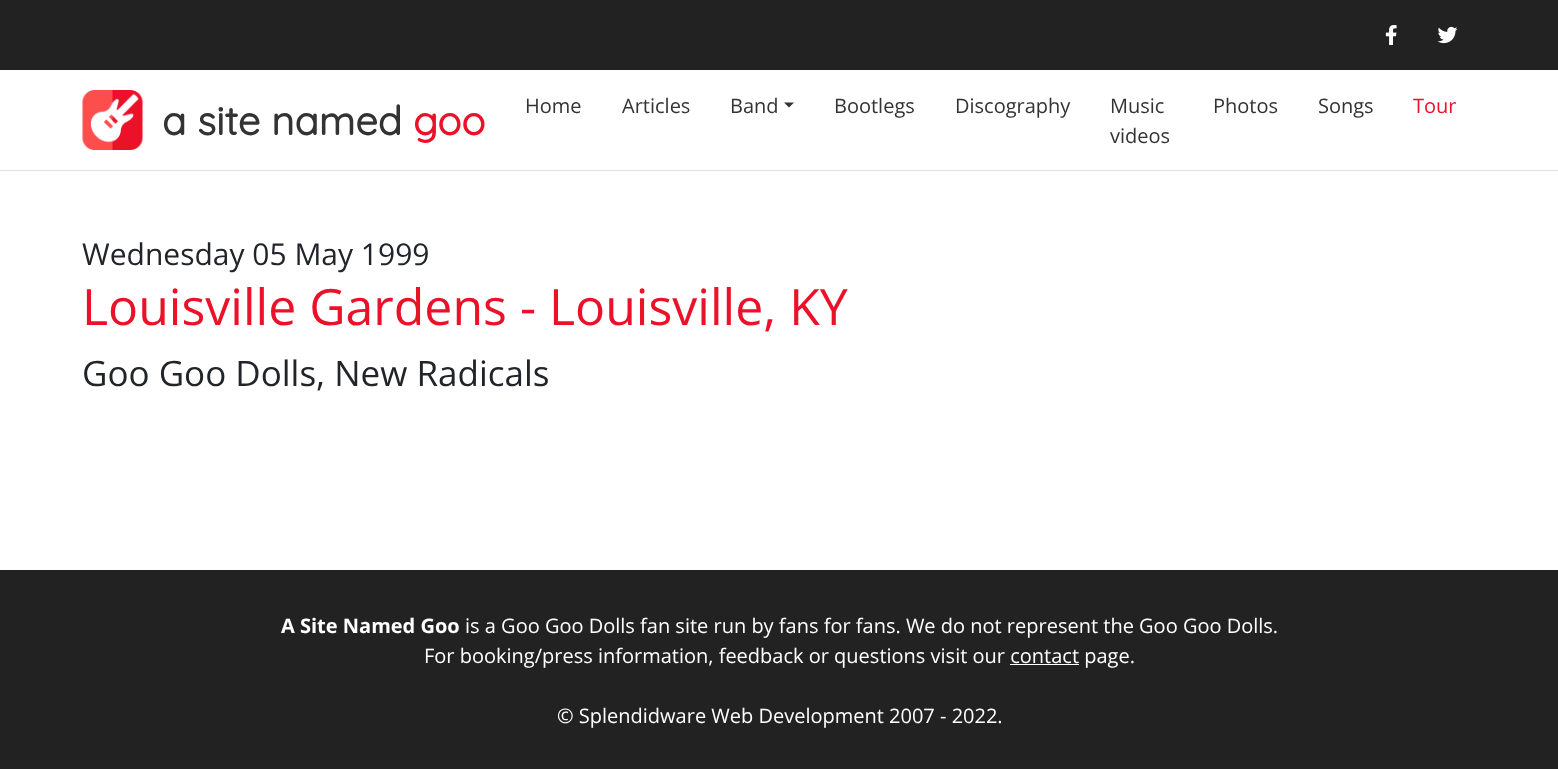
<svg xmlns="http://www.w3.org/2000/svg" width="1558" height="769">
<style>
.a{font:bold 40px Quicksand;fill:#333}
.b{font:bold 40px Quicksand;fill:#eb1129}
.c{font:20px Open Sans;fill:#333}
.d{font:20px Open Sans;fill:#eb1129}
.e{font:30px Open Sans;fill:#212529}
.f{font:50px Open Sans;fill:#eb1129}
.g{font:35px Open Sans;fill:#212529}
.h{font:bold 20px Open Sans;fill:#fff}
.i{font:20px Open Sans;fill:#fff}
</style>
<rect width="100%" height="100%" fill="#fff"/>
<path fill="#222" d="M0 0h1558v70H0z"/>
<image href="1.png" x="1385" y="25" width="12" height="20"/>
<image href="2.png" x="1437" y="26" width="21" height="18"/>
<path fill="#dee2e6" d="M0 170h1558v1H0z"/>
<image href="3.png" x="82" y="90" width="61" height="60"/>
<path fill="#333" d="M784 102.5h10l-5 5z"/>
<path fill="#222" d="M0 570h1558v199H0z"/>
<path fill="#fff" d="M1010 664h69v1H1010z"/>
<text class="a" x="162" y="135">a site named</text>
<text class="b" x="413" y="135">goo</text>
<text class="c" x="525" y="113">Home</text>
<text class="c" x="622" y="113">Articles</text>
<text class="c" x="730" y="113">Band</text>
<text class="c" x="834" y="113">Bootlegs</text>
<text class="c" x="955" y="113">Discography</text>
<text class="c" x="1110" y="113">Music</text>
<text class="c" x="1110" y="143">videos</text>
<text class="c" x="1213" y="113">Photos</text>
<text class="c" x="1318" y="113">Songs</text>
<text class="d" x="1413" y="113">Tour</text>
<text class="e" x="82" y="265">Wednesday 05 May 1999</text>
<text class="f" x="82" y="325">Louisville Gardens - Louisville, KY</text>
<text class="g" x="82" y="386">Goo Goo Dolls, New Radicals</text>
<text class="h" x="281" y="633">A Site Named Goo</text>
<text class="i" x="465" y="633">is a Goo Goo Dolls fan site run by fans for fans. We do not represent the Goo Goo Dolls.</text>
<text class="i" x="424" y="663">For booking/press information, feedback or questions visit our contact page.</text>
<text class="i" x="557" y="723">© Splendidware Web Development 2007 - 2022.</text>
</svg>
